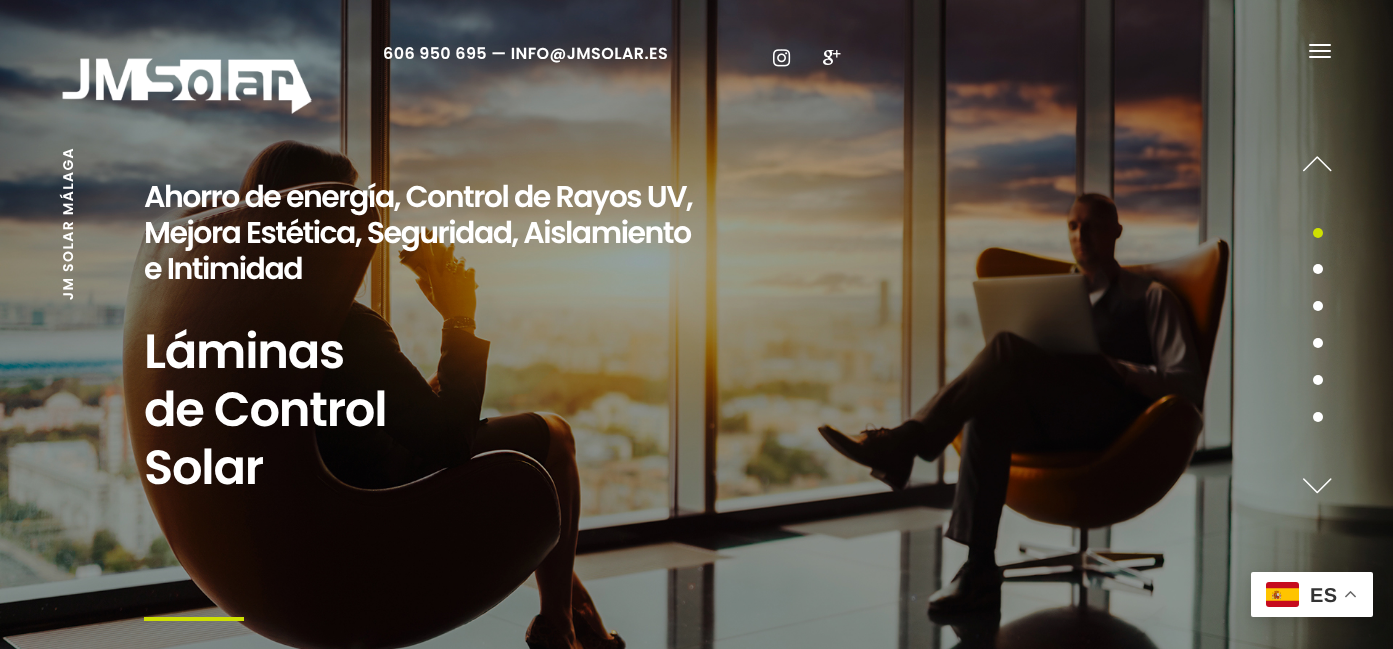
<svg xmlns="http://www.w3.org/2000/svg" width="1393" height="649">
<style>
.a{font:600 16px Poppins;letter-spacing:0.4px;fill:#fff}
.b{font:600 14px Poppins;letter-spacing:1.4px;fill:#fff}
.c{font:600 30px Poppins;letter-spacing:-1.5px;fill:#fff}
.d{font:600 48px Poppins;letter-spacing:-1.25px;fill:#fff}
.e{font:bold 20px Liberation Sans;letter-spacing:0.4px;fill:#333}
</style>
<rect width="100%" height="100%" fill="#fff"/>
<image href="4.png" x="0" y="0" width="1393" height="649"/>
<image href="1.png" x="62" y="58" width="250" height="56"/>
<image href="2.png" x="773" y="49" width="18" height="18"/>
<image href="3.png" x="823" y="50" width="18" height="15"/>
<rect fill="#fff" x="1309" y="44" width="22" height="2" rx="1"/>
<rect fill="#fff" x="1309" y="50" width="22" height="2" rx="1"/>
<rect fill="#fff" x="1309" y="56" width="22" height="2" rx="1"/>
<path fill="#cee002" d="M144 617h100v4H144z"/>
<image href="5.png" x="1303" y="156" width="29" height="16"/>
<circle fill="#cee002" cx="1318" cy="233" r="5"/>
<circle fill="#fff" cx="1318" cy="269" r="5"/>
<circle fill="#fff" cx="1318" cy="306" r="5"/>
<circle fill="#fff" cx="1318" cy="343" r="5"/>
<circle fill="#fff" cx="1318" cy="380" r="5"/>
<circle fill="#fff" cx="1318" cy="417" r="5"/>
<image href="6.png" x="1303" y="478" width="29" height="16"/>
<rect fill="#00000026" filter="blur(7.5px)" x="1251" y="577" width="122" height="45" rx="2"/>
<rect fill="#fff" x="1251" y="572" width="122" height="45" rx="2"/>
<image href="7.png" x="1266" y="582" width="33" height="25"/>
<image href="8.png" x="1345" y="591" width="11" height="7"/>
<text class="a" x="383" y="59">606 950 695 — INFO@JMSOLAR.ES</text>
<text class="b" x="73" y="300" transform="rotate(-90 73 300)">JM SOLAR MÁLAGA</text>
<text class="c" x="144" y="207">Ahorro de energía, Control de Rayos UV,</text>
<text class="c" x="144" y="243">Mejora Estética, Seguridad, Aislamiento</text>
<text class="c" x="144" y="279">e Intimidad</text>
<text class="d" x="144" y="368">Láminas</text>
<text class="d" x="144" y="426">de Control</text>
<text class="d" x="144" y="484">Solar</text>
<text class="e" x="1310" y="602">ES</text>
</svg>
